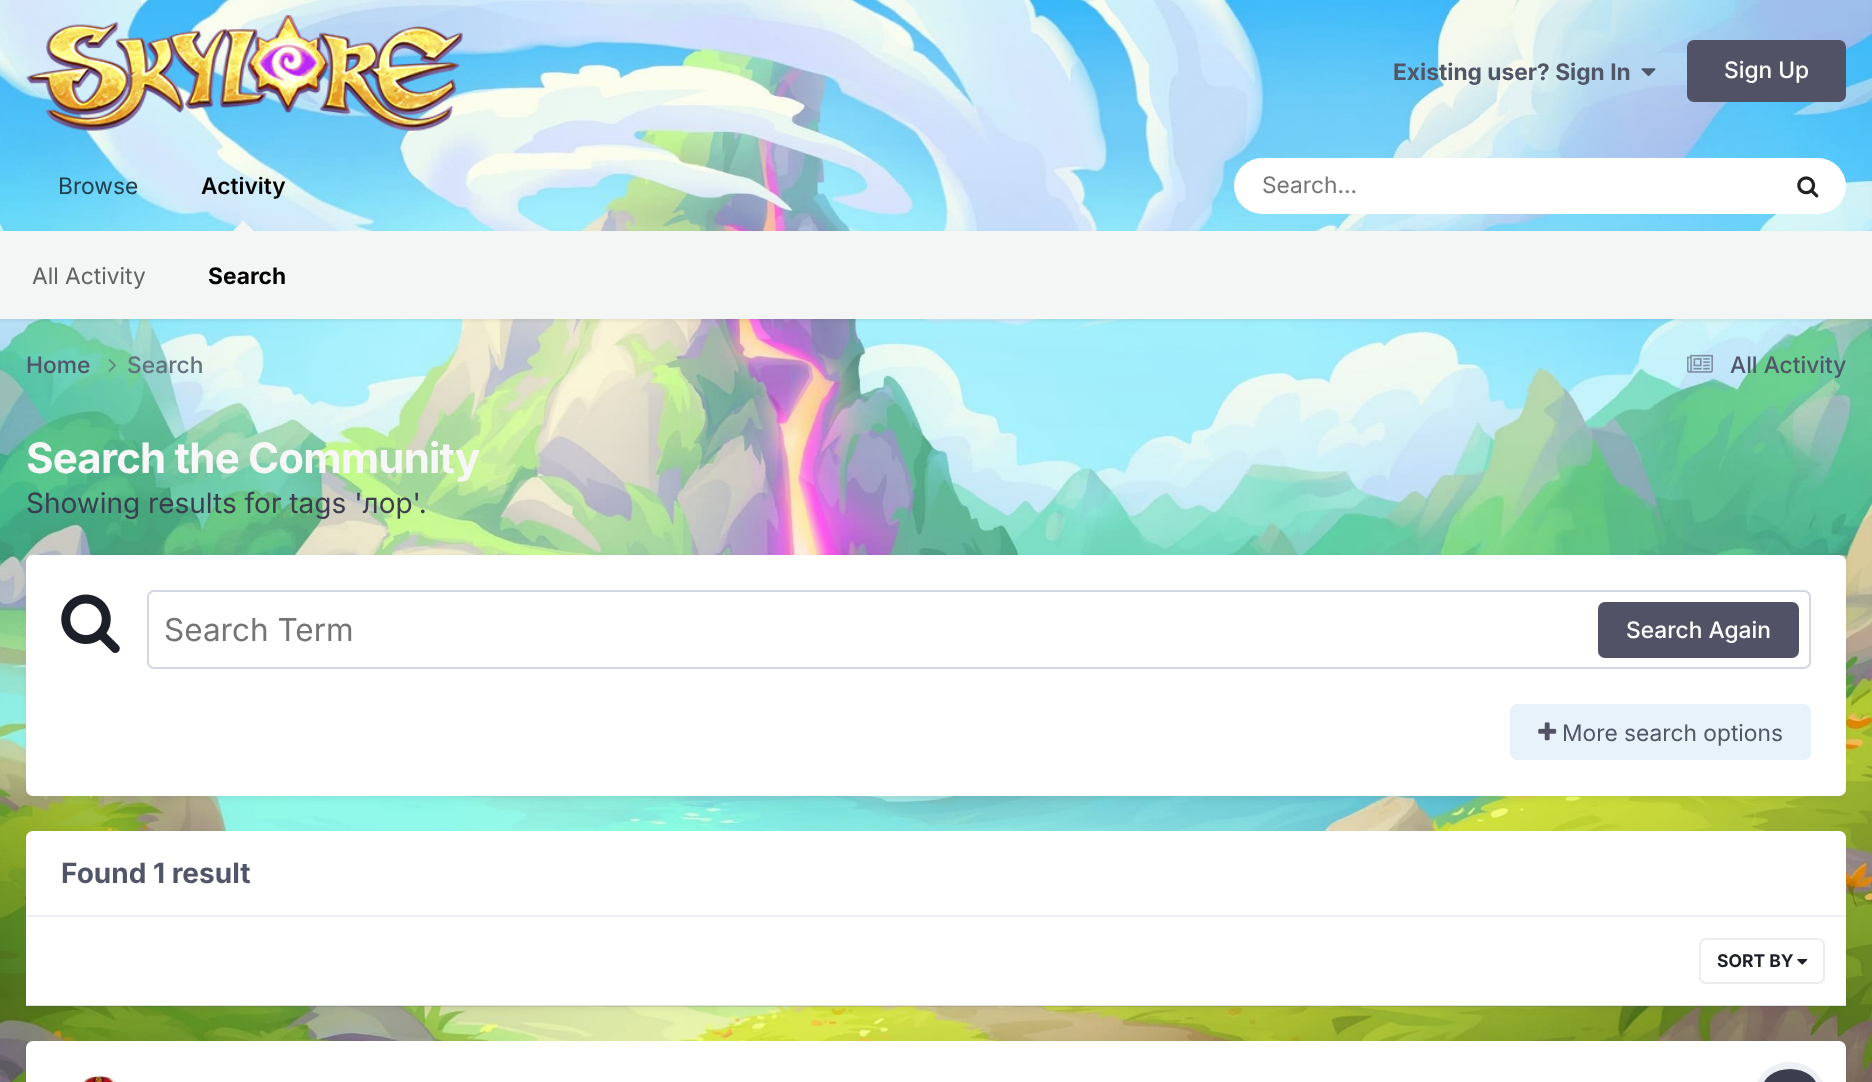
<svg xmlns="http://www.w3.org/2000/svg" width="1872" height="1082">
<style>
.a{font:bold 22.75px Inter;fill:#515568}
.b{font:500 22.75px Inter;fill:#fff}
.c{font:600 22.75px Inter;fill:#000}
.d{font:22.75px Inter;fill:#616262}
.e{font:bold 22.75px Inter;fill:#000}
.f{font:22.75px Inter;fill:#213f4b}
.g{font:22.75px Inter;fill:#757575}
.h{font:500 22.75px Inter;fill:#515568}
.i{font:500 22.75px Inter;fill:#64717e}
.j{font:bold 42px Inter;letter-spacing:-0.8px;fill:#f7f7f7}
.k{font:28px Inter;fill:#3b3e4f}
.l{font:31.5px Inter;fill:#757575}
.m{font:22.75px Inter;fill:#515568}
.n{font:bold 28px Inter;fill:#515568}
.o{font:bold 17.5px Inter;fill:#1e2029}
</style>
<rect width="100%" height="100%" fill="#fff"/>
<image href="1.png" x="0" y="0" width="1872" height="1082"/>
<image href="2.png" x="26" y="15" width="437" height="116"/>
<image href="3.png" x="1641" y="68" width="15" height="9"/>
<rect fill="#525266" x="1687" y="40" width="159" height="62" rx="7"/>
<path fill="#0000001a" filter="blur(2px)" d="M0 233h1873v87H0z"/>
<path fill="#f3f6f4" d="M254 231h-21l10-10.5z"/>
<rect fill="#fff" x="1234" y="158" width="612" height="56" rx="28"/>
<image href="4.png" x="1797" y="176" width="22" height="22"/>
<path fill="#f3f6f4" d="M0 231h1872v88H0z"/>
<image href="5.png" x="108" y="359" width="8" height="13"/>
<image href="6.png" x="1687" y="354" width="26" height="19"/>
<rect fill="#3b3e4f1a" filter="blur(3.5px)" x="28" y="560" width="1817" height="238" rx="5"/>
<rect fill="#fff" x="26" y="555" width="1820" height="241" rx="7"/>
<image href="7.png" x="61" y="594" width="59" height="59"/>
<rect fill="none" stroke="#d3d6e3" stroke-width="2" x="148" y="591" width="1662" height="77" rx="6"/>
<rect fill="#525266" x="1598" y="602" width="201" height="56" rx="7"/>
<rect fill="#e8f2fa" x="1510" y="704" width="301" height="56" rx="7"/>
<image href="8.png" x="1538" y="722" width="19" height="19"/>
<rect fill="#3b3e4f1a" filter="blur(3.5px)" x="28" y="837" width="1817" height="171" rx="5"/>
<path fill="#fff" d="M33 831h1806c4 0 7 3 7 7v79h-1820v-79c0-4 3-7 7-7z"/>
<path fill="#eff0f5" d="M26 915h1820v2H26z"/>
<path fill="#fff" d="M26 917h1820v89H26z"/>
<path fill="#3b3e4f26" d="M26 1005h1820v2H26z"/>
<image href="9.png" x="1797" y="959" width="11" height="6"/>
<rect fill="none" stroke="#ebeced" stroke-width="2" x="1700" y="939" width="124" height="44" rx="6"/>
<rect fill="#3b3e4f1a" filter="blur(3.5px)" x="28" y="1047" width="1817" height="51" rx="5"/>
<rect fill="#fff" x="26" y="1041" width="1820" height="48" rx="7"/>
<image href="10.png" x="81" y="1076" width="37" height="6"/>
<rect fill="none" stroke="#edf0f4" stroke-width="7" x="1758.5" y="1065.5" width="63" height="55" rx="31.5"/>
<rect fill="#3b3e4f" x="1762" y="1069" width="56" height="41" rx="28"/>
<text class="a" x="1393" y="80">Existing user? Sign In</text>
<text class="b" x="1724" y="78">Sign Up</text>
<text class="c" x="201" y="194">Activity</text>
<text class="d" x="32" y="284">All Activity</text>
<text class="e" x="208" y="284">Search</text>
<text class="f" x="58" y="194">Browse</text>
<text class="g" x="1262" y="193">Search...</text>
<text class="h" x="26" y="373">Home</text>
<text class="i" x="127" y="373">Search</text>
<text class="h" x="1730" y="373">All Activity</text>
<text class="j" x="26" y="473">Search the Community</text>
<text class="k" x="26" y="513">Showing results for tags 'лор'.</text>
<text class="l" x="164" y="641">Search Term</text>
<text class="b" x="1626" y="638">Search Again</text>
<text class="m" x="1562" y="741">More search options</text>
<text class="n" x="61" y="883">Found 1 result</text>
<text class="o" x="1717" y="967">SORT BY</text>
</svg>
